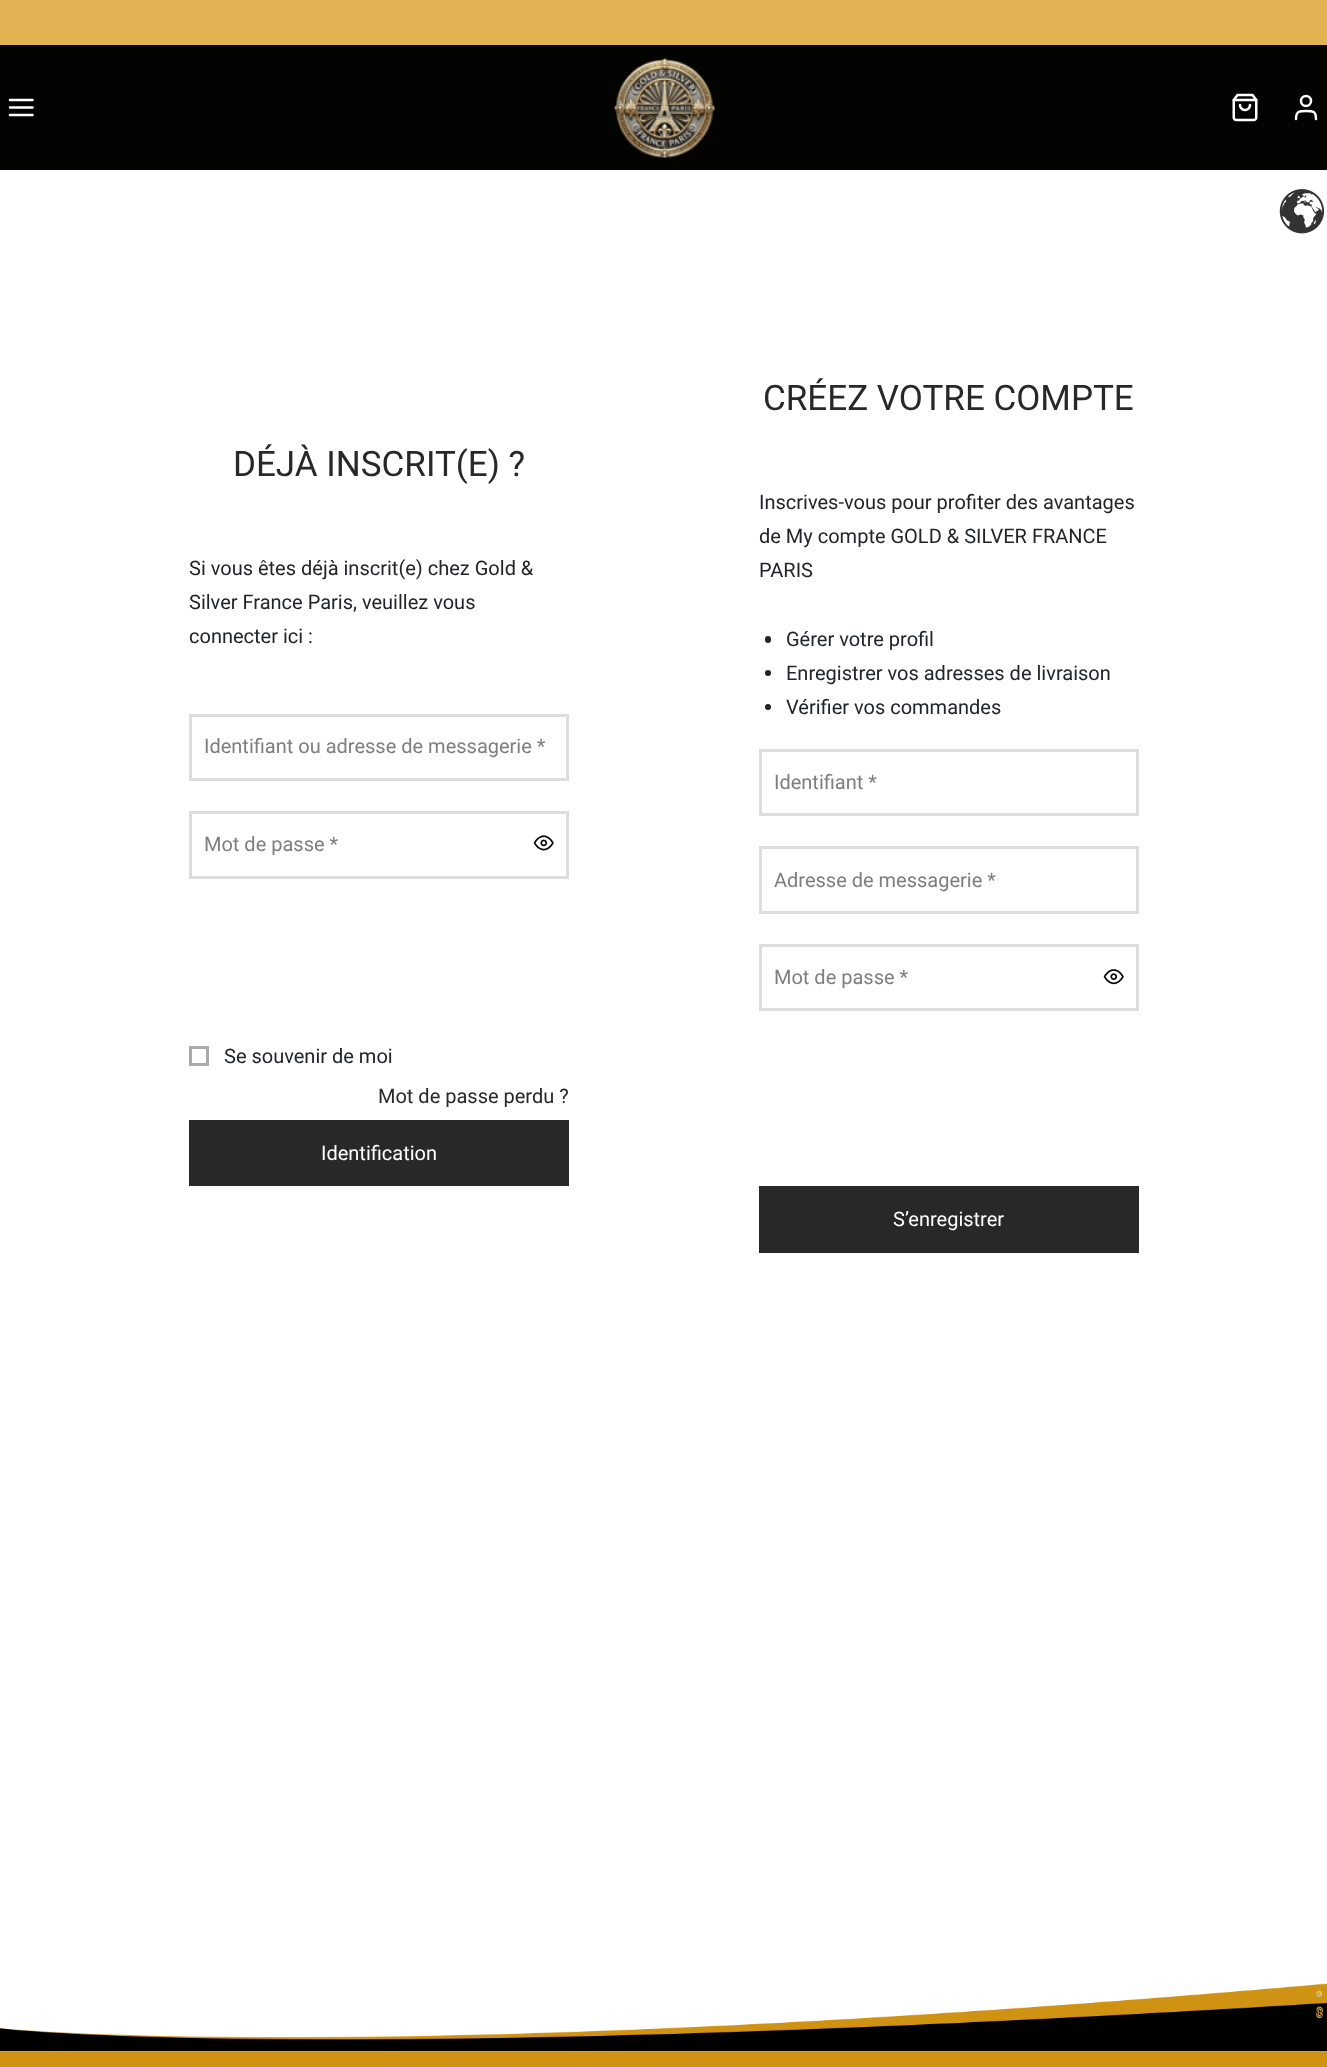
<svg xmlns="http://www.w3.org/2000/svg" width="1327" height="2067">
<style>
.a{font:35px Roboto;fill:#282828}
.b{font:20px Roboto;fill:#212529}
.c{font:20px Roboto;fill:#7e7e7e}
.d{font:20px Roboto;fill:#282828}
.e{font:20px Roboto;fill:#fff}
</style>
<rect width="100%" height="100%" fill="#fff"/>
<image href="1.png" x="1279" y="189" width="46" height="45"/>
<path fill="#e2b353" d="M0 0h1327v45H0z"/>
<path fill="#030302" d="M0 45h1327v125H0z"/>
<path fill="none" stroke="#fff" stroke-width="2.5" stroke-linecap="round" stroke-linejoin="round" d="M10 107.5h22.5m-22.5-7.5h22.5m-22.5 15h22.5"/>
<image href="2.png" x="613" y="57" width="102" height="101"/>
<image href="3.png" x="1232" y="93" width="26" height="29"/>
<path fill="none" stroke="#fff" stroke-width="2.5" stroke-linecap="round" stroke-linejoin="round" d="M1316 119c0-8-3-8-10-8c-6.5 0-10 0-10 8"/>
<circle fill="none" stroke="#fff" stroke-width="2.5" cx="1306" cy="101" r="5"/>
<path fill="none" stroke="#ddd" stroke-width="3" d="M190.5 715.5h377v64H190.5z"/>
<path fill="none" stroke="#ddd" stroke-width="3" d="M190.5 812.5h377v65H190.5z"/>
<image href="4.png" x="533" y="835" width="21" height="16"/>
<path fill="none" stroke="#aaa" stroke-width="3" d="M190.5 1047.5h17v17H190.5z"/>
<path fill="#282828" d="M189 1120h380v66H189z"/>
<rect fill="#212529" x="765" y="636" width="6" height="7" rx="3"/>
<circle fill="#212529" cx="768" cy="673" r="3"/>
<circle fill="#212529" cx="768" cy="707" r="3"/>
<path fill="none" stroke="#ddd" stroke-width="3" d="M760.5 750.5h377v64H760.5z"/>
<path fill="none" stroke="#ddd" stroke-width="3" d="M760.5 847.5h377v65H760.5z"/>
<path fill="none" stroke="#ddd" stroke-width="3" d="M760.5 945.5h377v64H760.5z"/>
<image href="5.png" x="1103" y="969" width="21" height="16"/>
<path fill="#282828" d="M759 1186h380v67H759z"/>
<image href="6.png" x="0" y="1983" width="1327" height="68"/>
<path fill="#d09213" d="M0 2052h1327v15H0z"/>
<path fill="#d59d2b" d="M0 2051h1327v1H0z"/>
<text class="a" x="233" y="476">DÉJÀ INSCRIT(E) ?</text>
<text class="b" x="189" y="575">Si vous êtes déjà inscrit(e) chez Gold &amp;</text>
<text class="b" x="189" y="609">Silver France Paris, veuillez vous</text>
<text class="b" x="189" y="643">connecter ici :</text>
<text class="c" x="204" y="753">Identifiant ou adresse de messagerie *</text>
<text class="c" x="204" y="851">Mot de passe *</text>
<text class="b" x="224" y="1063">Se souvenir de moi</text>
<text class="d" x="378" y="1103">Mot de passe perdu ?</text>
<text class="e" x="321" y="1160">Identification</text>
<text class="a" x="763" y="410">CRÉEZ VOTRE COMPTE</text>
<text class="b" x="759" y="509">Inscrives-vous pour profiter des avantages</text>
<text class="b" x="759" y="543">de My compte GOLD &amp; SILVER FRANCE</text>
<text class="b" x="759" y="577">PARIS</text>
<text class="b" x="786" y="646">Gérer votre profil</text>
<text class="b" x="786" y="680">Enregistrer vos adresses de livraison</text>
<text class="b" x="786" y="714">Vérifier vos commandes</text>
<text class="c" x="774" y="789">Identifiant *</text>
<text class="c" x="774" y="887">Adresse de messagerie *</text>
<text class="c" x="774" y="984">Mot de passe *</text>
<text class="e" x="893" y="1226">S’enregistrer</text>
</svg>
